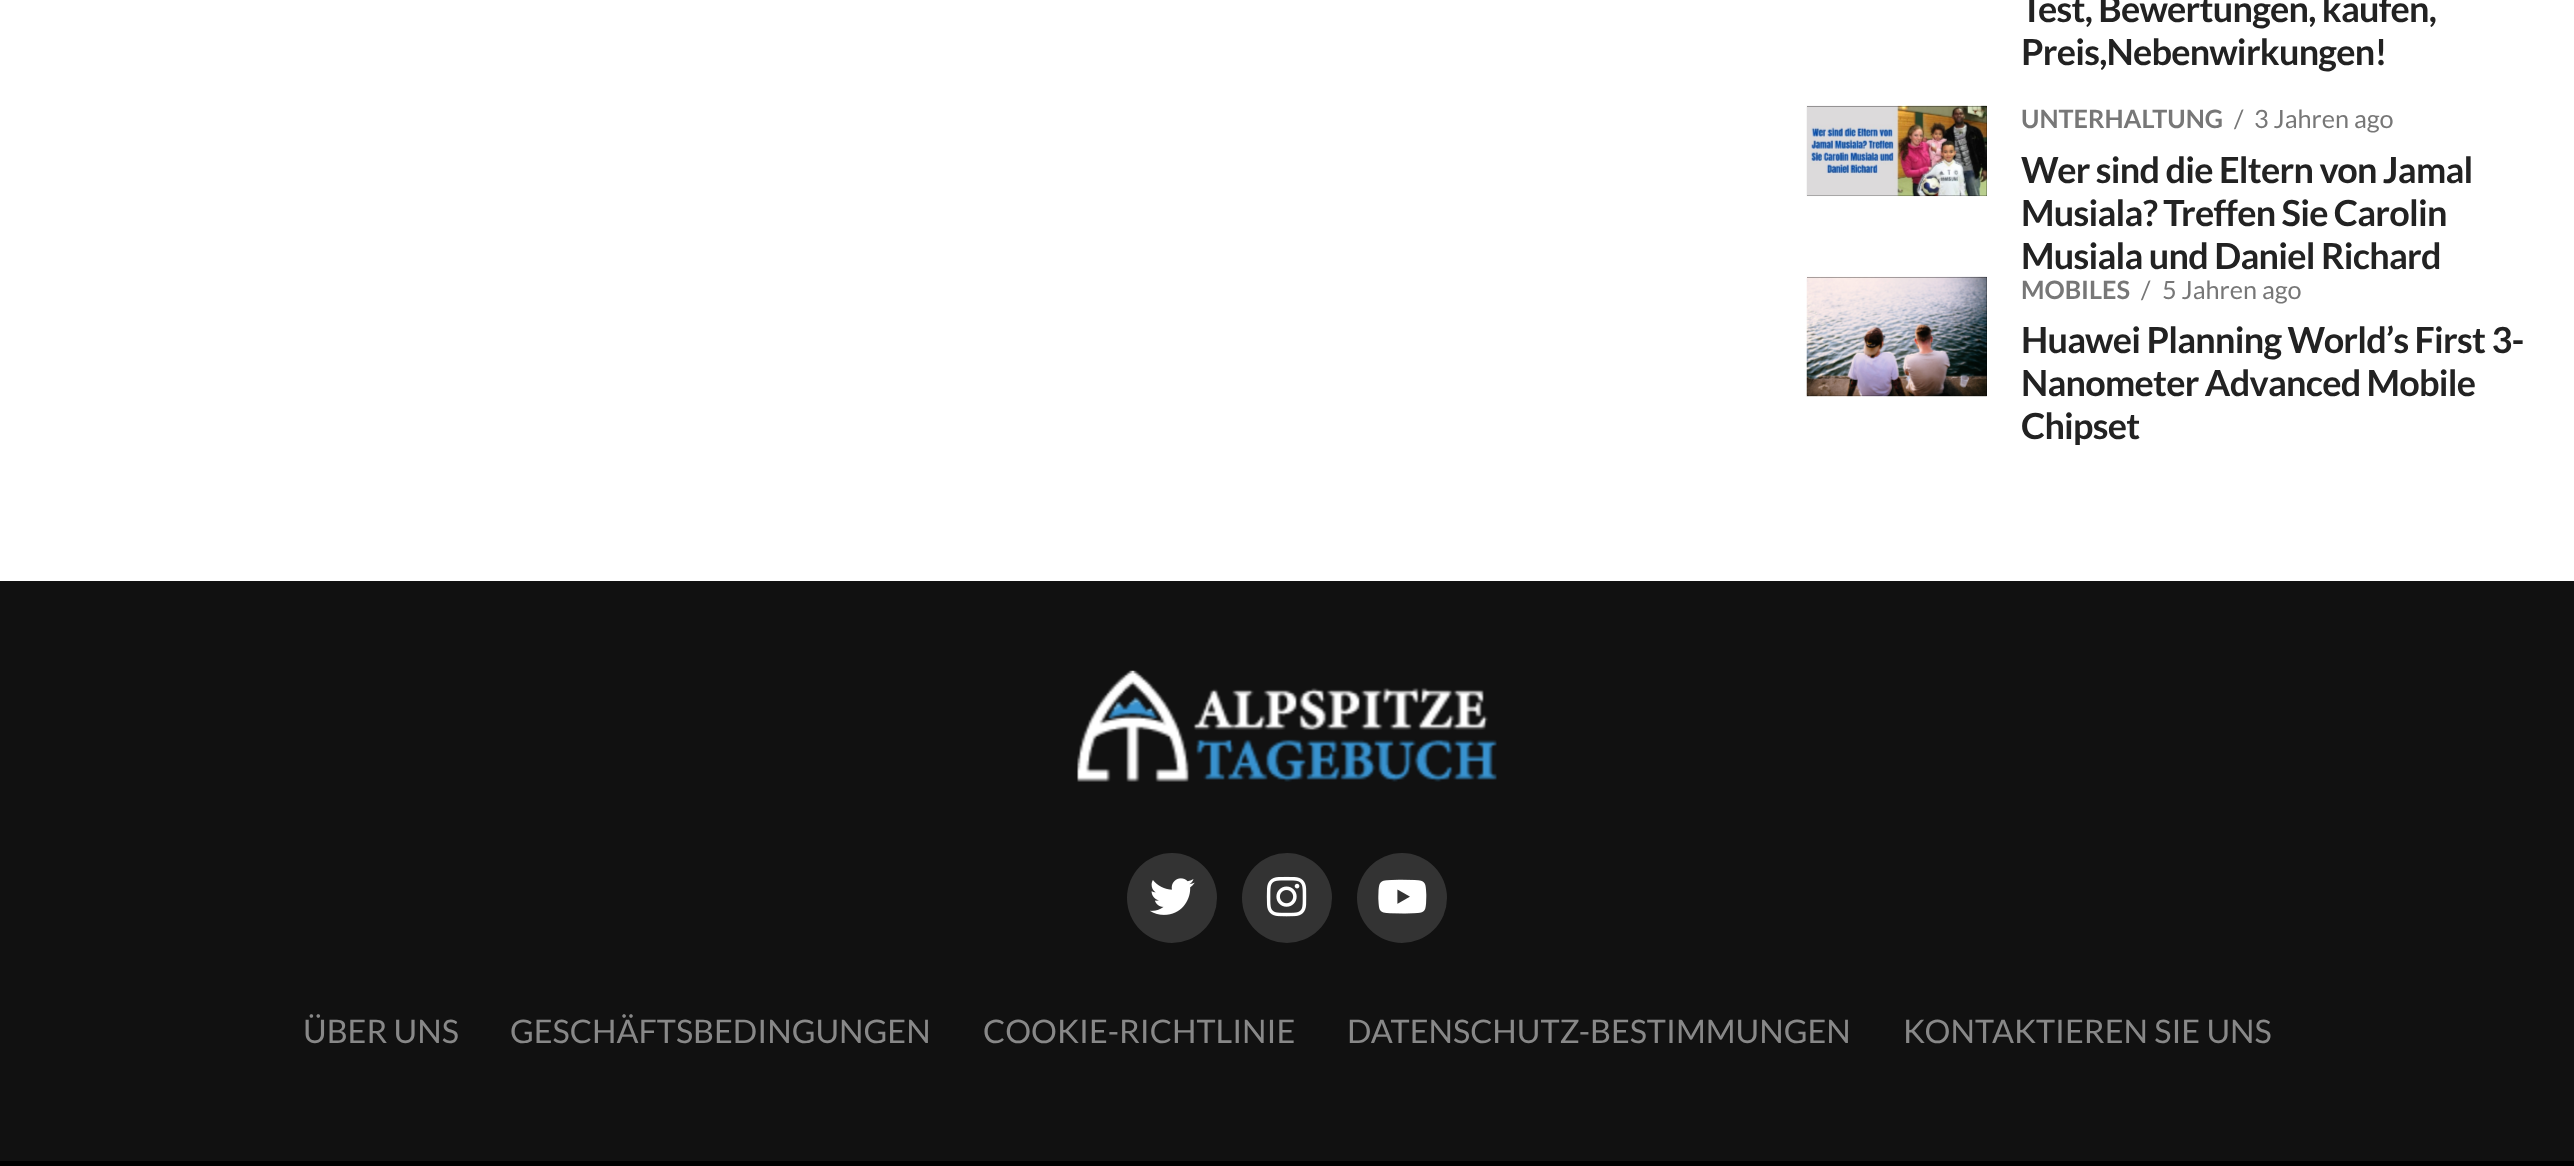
<svg xmlns="http://www.w3.org/2000/svg" width="2574" height="1166">
<style>
.a{font:bold 36px Lato;letter-spacing:-0.75px;fill:#222}
.b{font:bold 25.25px Lato;fill:#777}
.c{font:25.25px Lato;fill:#777}
.d{font:32.4px Lato;fill:#888}
</style>
<rect width="100%" height="100%" fill="#fff"/>
<path fill="#000" d="M1807 106h180v90H1807z"/>
<image href="1.png" x="1806" y="105" width="181" height="92"/>
<path fill="#000" d="M1807 277h180v119H1807z"/>
<image href="2.png" x="1806" y="276" width="181" height="121"/>
<path fill="#111" d="M0 581h2574v580H0z"/>
<image href="3.png" x="1077" y="670" width="420" height="112"/>
<circle fill="#333" cx="1172" cy="898" r="45"/>
<image href="4.png" x="1150" y="878" width="45" height="37"/>
<circle fill="#333" cx="1287" cy="898" r="45"/>
<image href="5.png" x="1266" y="876" width="41" height="41"/>
<circle fill="#333" cx="1402" cy="898" r="45"/>
<image href="6.png" x="1378" y="879" width="49" height="35"/>
<path fill="#000" d="M0 1161h2574v5H0z"/>
<text class="a" x="2021" y="22">Test, Bewertungen, kaufen,</text>
<text class="a" x="2021" y="65">Preis,Nebenwirkungen!</text>
<text class="b" x="2021" y="128">UNTERHALTUNG</text>
<text class="c" x="2234" y="128">/</text>
<text class="c" x="2254" y="128">3 Jahren ago</text>
<text class="a" x="2021" y="183">Wer sind die Eltern von Jamal</text>
<text class="a" x="2021" y="226">Musiala? Treffen Sie Carolin</text>
<text class="a" x="2021" y="269">Musiala und Daniel Richard</text>
<text class="b" x="2021" y="299">MOBILES</text>
<text class="c" x="2141" y="299">/</text>
<text class="c" x="2162" y="299">5 Jahren ago</text>
<text class="a" x="2021" y="353">Huawei Planning World’s First 3-</text>
<text class="a" x="2021" y="396">Nanometer Advanced Mobile</text>
<text class="a" x="2021" y="439">Chipset</text>
<text class="d" x="303" y="1043">ÜBER UNS</text>
<text class="d" x="510" y="1043">GESCHÄFTSBEDINGUNGEN</text>
<text class="d" x="983" y="1043">COOKIE-RICHTLINIE</text>
<text class="d" x="1347" y="1043">DATENSCHUTZ-BESTIMMUNGEN</text>
<text class="d" x="1903" y="1043">KONTAKTIEREN SIE UNS</text>
</svg>
